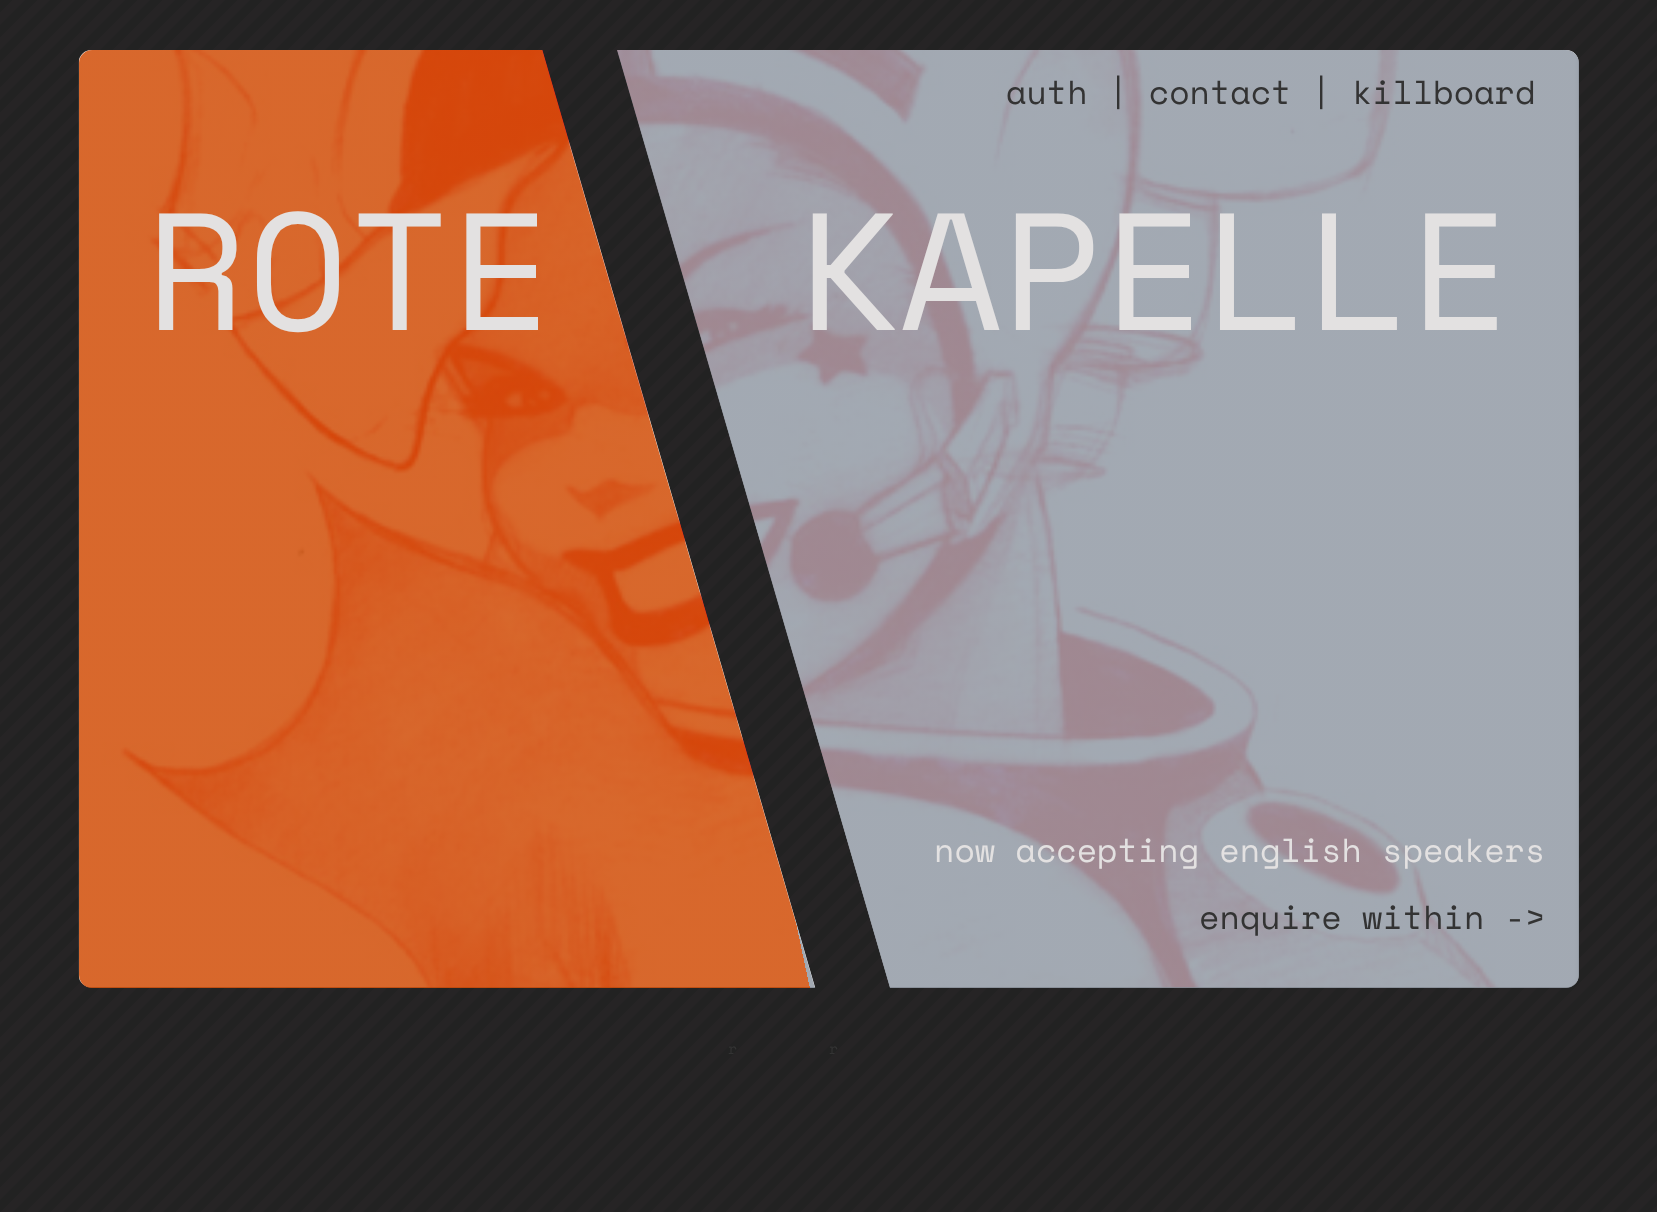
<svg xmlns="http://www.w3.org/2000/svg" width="1657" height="1212">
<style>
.a{font:33.3px Space Mono;fill:#333}
.b{font:166.5px Space Mono;fill:#e3e1e1}
.c{font:33.3px Space Mono;fill:#e3e1e1}
.d{font:15px Space Mono;fill:#333}
</style>
<defs>
<linearGradient id="g1" gradientUnits="userSpaceOnUse" x1="16" y1="692" x2="1642" y2="346"><stop offset="0" stop-color="#d14d07" stop-opacity="0.85"/><stop offset="0.43" stop-color="#d14d07" stop-opacity="0.85"/><stop offset="0.43" stop-color="#929aa5" stop-opacity="0.85"/></linearGradient>
</defs>
<rect width="100%" height="100%" fill="#222"/>
<image href="1.png" x="0" y="0" width="1657" height="1212"/>
<image href="2.png" x="78" y="50" width="1501" height="938"/>
<path fill="url(#g1)" fill-rule="evenodd" d="M92 50c-7 0-13 6-13 13v912c0 7 6 13 13 13h723l-273-938zm525 0h949c7 0 13 6 13 13v912c0 7-6 13-13 13h-676z"/>
<text class="a" x="1006" y="104">auth</text>
<text class="a" x="1108" y="104">| contact</text>
<text class="a" x="1311" y="104">| killboard</text>
<text class="b" x="145" y="330">ROTE</text>
<text class="b" x="798" y="330">KAPELLE</text>
<text class="c" x="934" y="862">now accepting english speakers</text>
<text class="a" x="1199" y="929">enquire within -&gt;</text>
<text class="d" x="728" y="1054">r</text>
<text class="d" x="829" y="1054">r</text>
</svg>
